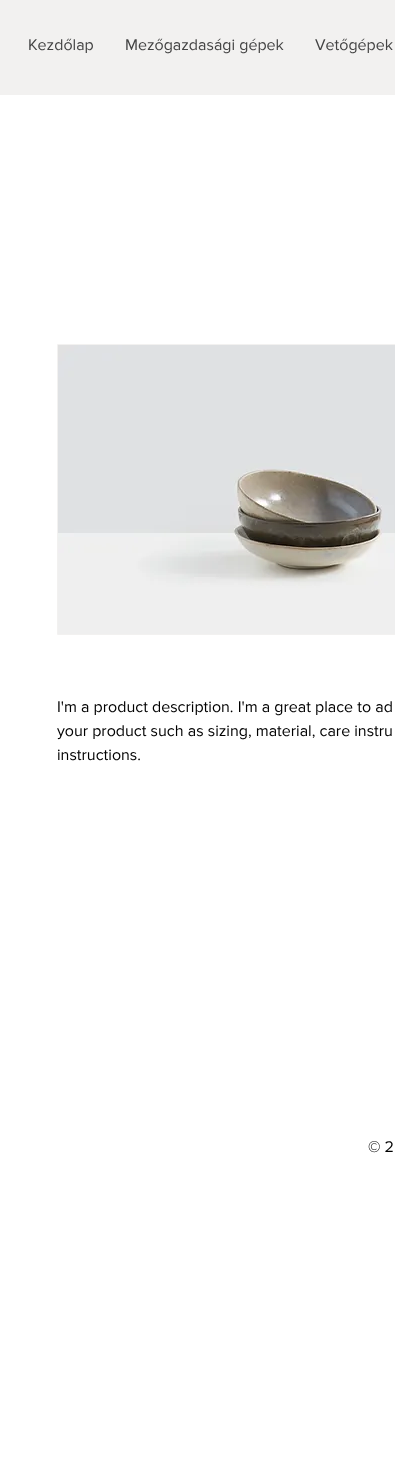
<svg xmlns="http://www.w3.org/2000/svg" width="395" height="1463">
<style>
.a{font:16px 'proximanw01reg';fill:#444}
.b{font:16px 'proximanw01reg';fill:#000}
</style>
<rect width="100%" height="100%" fill="#fff"/>
<path fill="#f2f1f0" d="M0 0h395v95H0z"/>
<path fill="none" stroke="#f2f1f0" d="M57.5 344.5h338v290H57.5z"/>
<image href="1.png" x="58" y="345" width="337" height="289"/>
<text class="a" x="28" y="50">Kezdőlap</text>
<text class="a" x="125" y="50">Mezőgazdasági gépek</text>
<text class="a" x="315" y="50">Vetőgépek</text>
<text class="b" x="57" y="712">I'm a product description. I'm a great place to ad</text>
<text class="b" x="57" y="736">your product such as sizing, material, care instru</text>
<text class="b" x="57" y="760">instructions.</text>
<text class="b" x="368" y="1152">© 2</text>
</svg>
